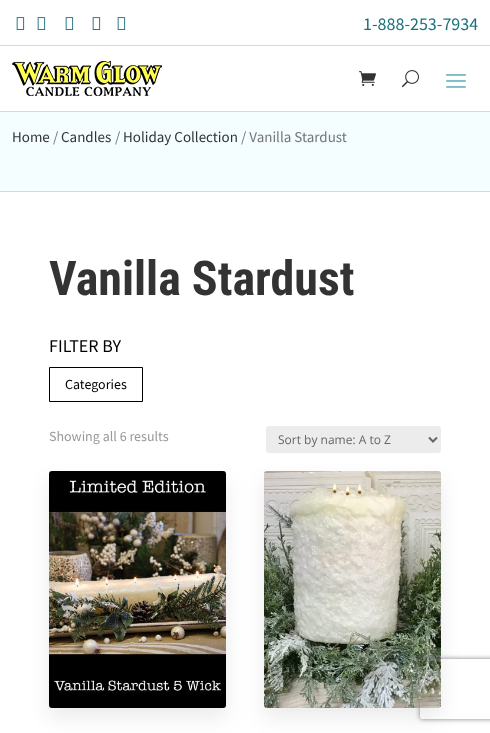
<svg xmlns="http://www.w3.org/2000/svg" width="490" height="733">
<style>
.a{font:18px Source Sans Pro;fill:#1b717b}
.b{font:15px Source Sans Pro;fill:#333}
.c{font:15px Source Sans Pro;fill:#767676}
.d{font:bold 48px Roboto Condensed;fill:#333}
.e{font:18px Source Sans Pro;fill:#000}
.f{font:14px Source Sans Pro;fill:#000}
.g{font:14px Source Sans Pro;fill:#999}
.h{font:12px Open Sans;fill:#666}
</style>
<defs>
<clipPath id="clip1"><path d="M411 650h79v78h-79zm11 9h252c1 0 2 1 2 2v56c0 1-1 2-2 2h-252c-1 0-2-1-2-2v-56c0-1 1-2 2-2z" clip-rule="evenodd"/></clipPath>
</defs>
<rect width="100%" height="100%" fill="#fff"/>
<path fill="#d2d9db" d="M0 45h490v1H0z"/>
<image href="1.png" x="16" y="17" width="9" height="13"/>
<image href="1.png" x="37" y="17" width="9" height="13"/>
<image href="1.png" x="65" y="17" width="9" height="13"/>
<image href="1.png" x="92" y="17" width="9" height="13"/>
<image href="1.png" x="117" y="17" width="9" height="13"/>
<path fill="#d2d9db" d="M0 111h490v1H0z"/>
<image href="2.png" x="12" y="61" width="150" height="35"/>
<image href="3.png" x="359" y="71" width="17" height="15"/>
<image href="4.png" x="402" y="70" width="17" height="18"/>
<image href="5.png" x="446" y="73" width="20" height="15"/>
<path fill="#f4fdff" d="M0 112h490v79H0z"/>
<path fill="#d2d9db" d="M0 191h490v1H0z"/>
<path fill="none" stroke="#000" d="M49.5 367.5h93v34H49.5z"/>
<rect fill="#00000014" filter="blur(10px)" x="264" y="481" width="177" height="237" rx="3"/>
<rect fill="#ececec" x="266" y="426" width="175" height="27" rx="3"/>
<path fill="none" stroke="#666" stroke-width="2" d="M429 437.5l4 4l4-4"/>
<rect fill="#00000014" filter="blur(10px)" x="49" y="481" width="177" height="237" rx="3"/>
<image href="6.png" x="49" y="471" width="177" height="237"/>
<image href="7.png" x="264" y="471" width="177" height="237"/>
<g clip-path="url(#clip1)">
<rect fill="#808080" filter="blur(2.5px)" x="420" y="659" width="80" height="60" rx="2"/>
</g>
<text class="a" x="363" y="30">1-888-253-7934</text>
<text class="b" x="12" y="142">Home</text>
<text class="c" x="53" y="142">/</text>
<text class="b" x="61" y="142">Candles</text>
<text class="c" x="115" y="142">/</text>
<text class="b" x="123" y="142">Holiday Collection</text>
<text class="c" x="241" y="142">/ Vanilla Stardust</text>
<text class="d" x="49" y="295">Vanilla Stardust</text>
<text class="e" x="49" y="352">FILTER BY</text>
<text class="f" x="65" y="389">Categories</text>
<text class="g" x="49" y="441">Showing all 6 results</text>
<text class="h" x="278" y="444">Sort by name: A to Z</text>
</svg>
